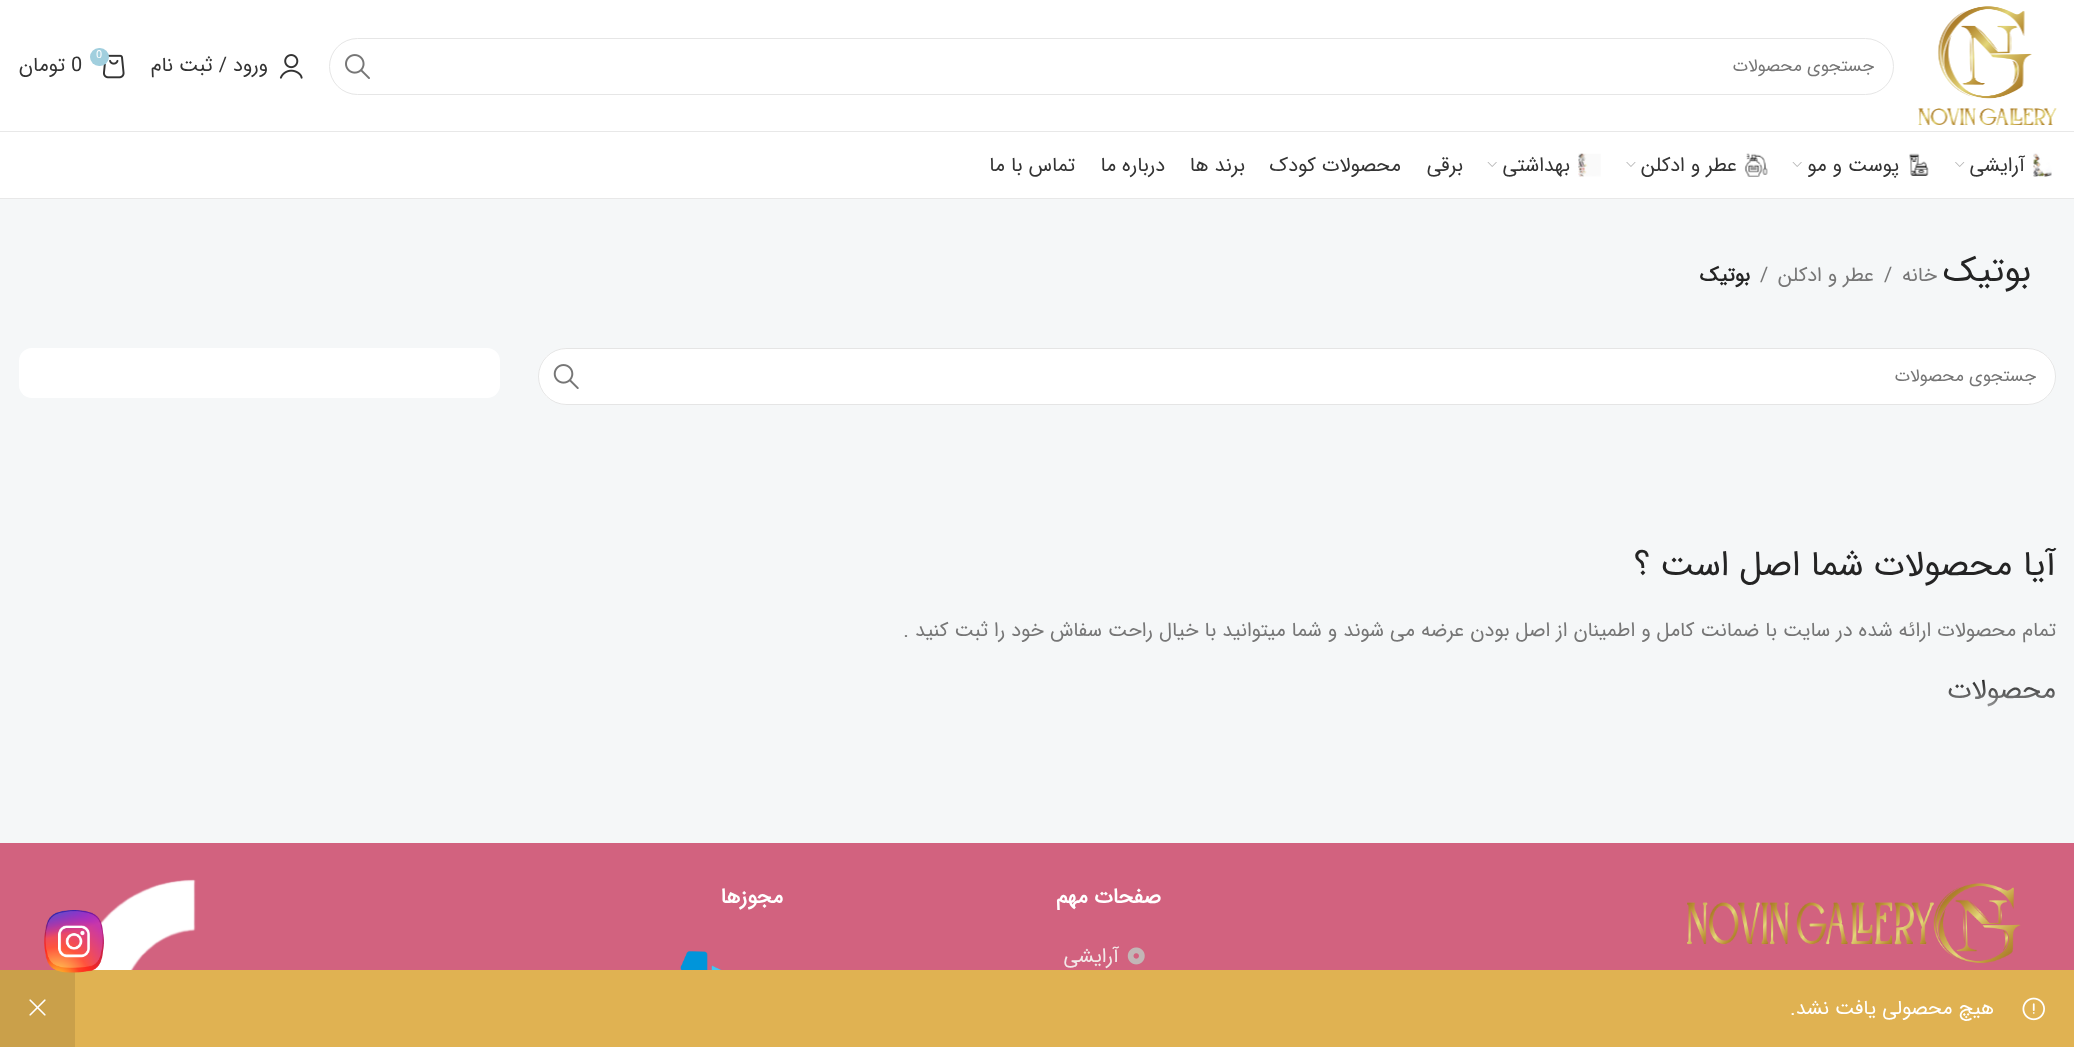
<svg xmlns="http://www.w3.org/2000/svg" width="2074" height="1047">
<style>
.a{font:17.5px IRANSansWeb;direction:rtl;fill:#767676}
.b{font:20px IRANSansWeb;direction:rtl;fill:#333}
.c{font:11px IRANSansWeb;fill:#fff}
.d{font:20px IRANSansWeb;fill:#333}
.e{font:35px IRANSansWeb;direction:rtl;fill:#242424}
.f{font:20px IRANSansWeb;direction:rtl;fill:#767676}
.g{font:20px IRANSansWeb;fill:#767676}
.h{font:bold 20px IRANSansWeb;direction:rtl;fill:#242424}
.i{font:20px IRANSansWeb;direction:rtl;fill:#fff}
.j{font:27.5px IRANSansWeb;direction:rtl;fill:#242424}
.k{font:bold 21.25px IRANSansWeb;direction:rtl;fill:#fff}
.l{font:20px IRANSansWeb;direction:rtl;fill:#f3e9e9}
</style>
<defs>
<linearGradient id="g1" gradientUnits="userSpaceOnUse" x1="1038" y1="680" x2="1038" y2="793"><stop offset="0" stop-color="#f5f7f8" stop-opacity="0"/><stop offset="0.44" stop-color="#f5f7f8"/></linearGradient>
</defs>
<rect width="100%" height="100%" fill="#fff"/>
<path fill="#e8e8e8" d="M0 131h2074v1H0z"/>
<image href="1.png" x="1918" y="6" width="139" height="119"/>
<rect fill="none" stroke="#e6e6e6" x="329.5" y="38.5" width="1564" height="56" rx="28"/>
<image href="2.png" x="345" y="54" width="25" height="25"/>
<image href="3.png" x="279" y="54" width="24" height="25"/>
<image href="4.png" x="103" y="54" width="22" height="25"/>
<rect fill="#a1cfde" x="90" y="48" width="19" height="18" rx="9"/>
<path fill="#e8e8e8" d="M0 198h2074v1H0z"/>
<image href="5.png" x="2033" y="153" width="19" height="24"/>
<image href="6.png" x="1955" y="162" width="10" height="5"/>
<image href="7.png" x="1909" y="153" width="20" height="23"/>
<image href="8.png" x="1792" y="162" width="10" height="5"/>
<image href="9.png" x="1744" y="153" width="24" height="24"/>
<image href="10.png" x="1626" y="162" width="10" height="5"/>
<image href="11.png" x="1578" y="153" width="23" height="24"/>
<image href="8.png" x="1487" y="162" width="10" height="5"/>
<path fill="#f5f7f8" d="M0 199h2074v644H0z"/>
<rect fill="#fff" x="538" y="348" width="1518" height="57" rx="28.5"/>
<rect fill="none" stroke="#0000001a" x="538.5" y="348.5" width="1517" height="56" rx="28"/>
<image href="12.png" x="553" y="364" width="26" height="25"/>
<path fill="#e0b252" d="M75 970h1999v77H75z"/>
<image href="13.png" x="2022" y="997" width="23" height="24"/>
<path fill="#caa04a" d="M0 970h75v77H0z"/>
<image href="14.png" x="29" y="999" width="17" height="17"/>
<rect fill="#fff" x="19" y="348" width="481" height="50" rx="13"/>
<path fill="#d2627f" d="M0 843h2074v127H0z"/>
<image href="15.png" x="1687" y="883" width="334" height="80"/>
<image href="16.png" x="1127" y="947" width="18" height="18"/>
<image href="17.png" x="680" y="951" width="42" height="19"/>
<image href="18.png" x="93" y="879" width="103" height="91"/>
<image href="19.png" x="44" y="910" width="60" height="63"/>
<text class="a" x="1874" y="71">جستجوی محصولات</text>
<text class="b" x="268" y="71">ورود / ثبت نام</text>
<text class="c" x="96" y="58">0</text>
<text class="d" x="71" y="71">0</text>
<text class="b" x="65" y="71">تومان</text>
<text class="b" x="2025" y="171">آرایشی</text>
<text class="b" x="1899" y="171">پوست و مو</text>
<text class="b" x="1737" y="171">عطر و ادکلن</text>
<text class="b" x="1570" y="171">بهداشتی</text>
<text class="b" x="1463" y="171">برقی</text>
<text class="b" x="1401" y="171">محصولات کودک</text>
<text class="b" x="1245" y="171">برند ها</text>
<text class="b" x="1165" y="171">درباره ما</text>
<text class="b" x="1075" y="171">تماس با ما</text>
<text class="e" x="2031" y="281">بوتیک</text>
<text class="f" x="1937" y="281">خانه</text>
<text class="g" x="1884" y="281">/</text>
<text class="f" x="1874" y="281">عطر و ادکلن</text>
<text class="g" x="1760" y="281">/</text>
<text class="h" x="1750" y="281">بوتیک</text>
<text class="a" x="2036" y="381">جستجوی محصولات</text>
<text class="i" x="1994" y="1014">هیچ محصولی یافت نشد.</text>
<text class="e" x="2056" y="575">آیا محصولات شما اصل است ؟</text>
<text class="f" x="2056" y="636">تمام محصولات ارائه شده در سایت با ضمانت کامل و اطمینان از اصل بودن عرضه می شوند و شما میتوانید با خیال راحت سفاش خود را ثبت کنید .</text>
<text class="j" x="2056" y="698">محصولات</text>
<path fill="url(#g1)" d="M1948 681h107v26H1948z"/>
<text class="k" x="1161" y="903">صفحات مهم</text>
<text class="l" x="1119" y="962">آرایشی</text>
<text class="k" x="783" y="903">مجوزها</text>
</svg>
